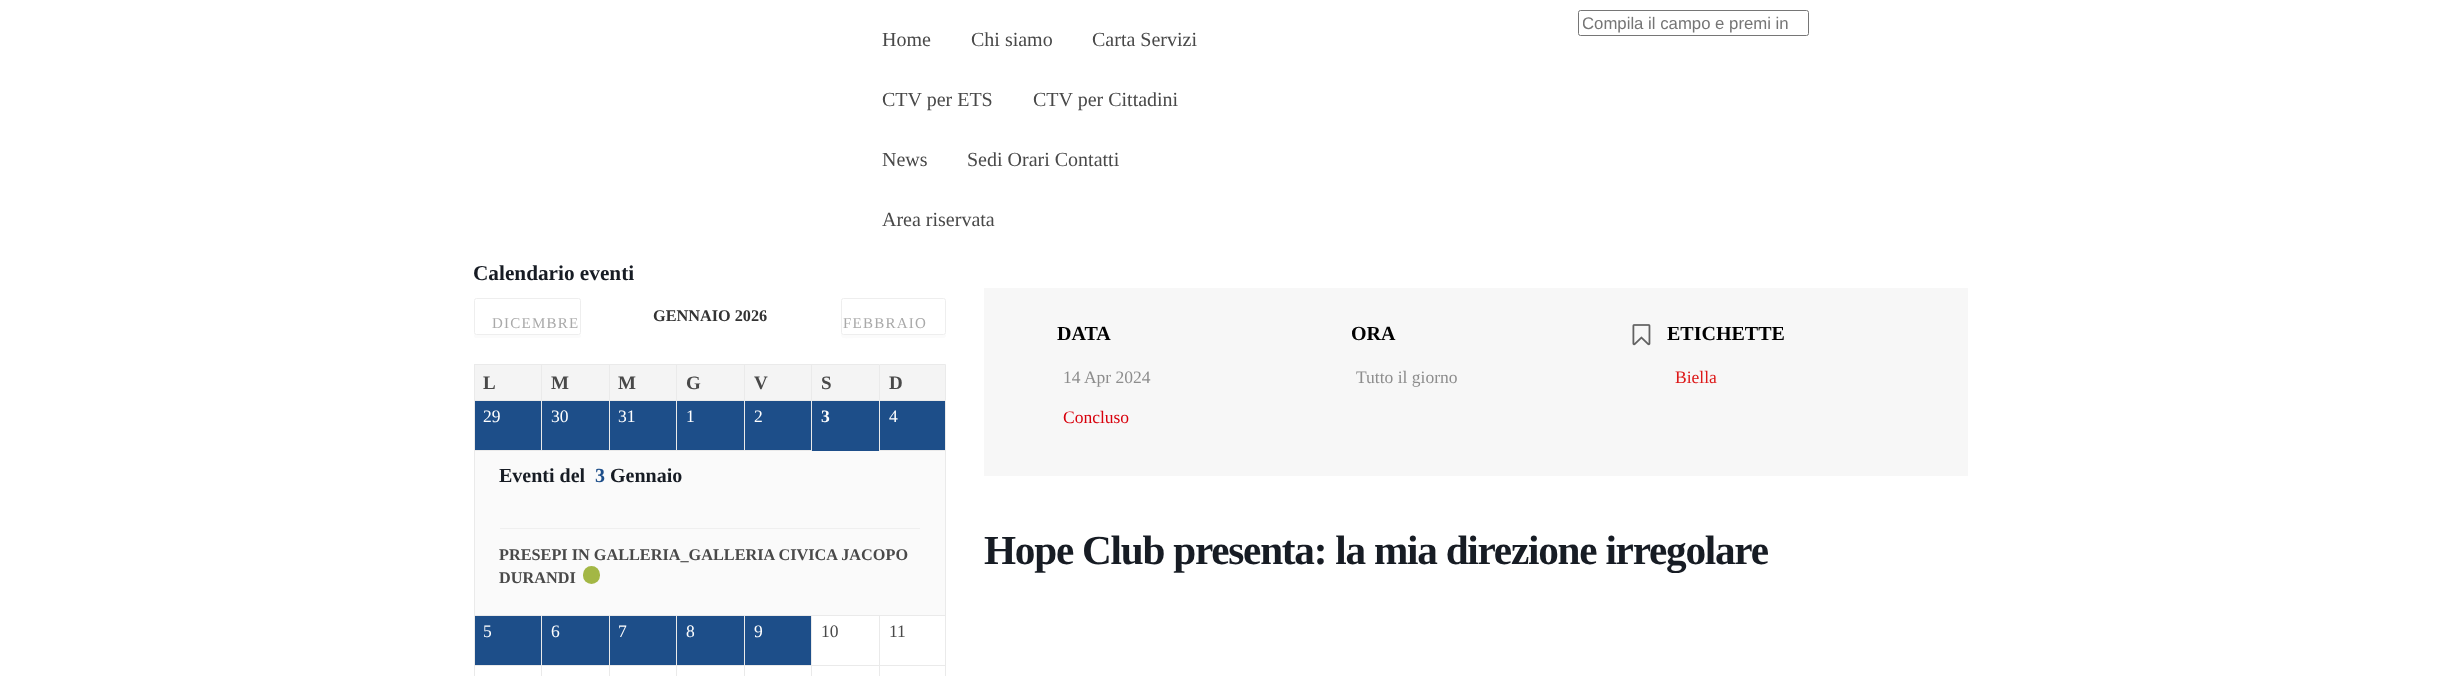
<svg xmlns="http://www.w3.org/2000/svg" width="2441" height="676">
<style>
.a{font:16.75px Liberation Sans;fill:#757575}
.b{font:20px Liberation Serif;fill:#494949}
.c{font:bold 21.25px Liberation Serif;fill:#171c24}
.d{font:bold 16.25px Liberation Serif;fill:#333}
.e{font:15px Liberation Serif;letter-spacing:1.25px;fill:#a9a9a9}
.f{font:bold 19px Liberation Serif;fill:#494949}
.g{font:17.5px Liberation Serif;fill:#fff}
.h{font:bold 17.5px Liberation Serif;fill:#fff}
.i{font:bold 20px Liberation Serif;fill:#171c24}
.j{font:bold 20px Liberation Serif;fill:#1d4e89}
.k{font:bold 16.25px Liberation Serif;fill:#494949}
.l{font:17.5px Liberation Serif;fill:#494949}
.m{font:bold 20px Liberation Serif;fill:#000}
.n{font:17.5px Liberation Serif;fill:#8d8d8d}
.o{font:17.5px Liberation Serif;fill:#d8000c}
.p{font:17.5px Liberation Serif;fill:#dd1818}
.q{font:bold 41.25px Liberation Serif;letter-spacing:-1.25px;fill:#171c24}
</style>
<defs>
<clipPath id="clip1"><path d="M1583 14h205v19H1583z"/></clipPath>
</defs>
<rect width="100%" height="100%" fill="#fff"/>
<rect fill="none" stroke="#767676" x="1578.5" y="10.5" width="230" height="25" rx="2"/>
<path fill="#fbfbfb" d="M474 334v2c0 1 1 2 2 2h102c2 0 3-1 3-2v-2c0 0-1 1-2 1h-103z"/>
<rect fill="none" stroke="#eee" x="474.5" y="298.5" width="106" height="36" rx="2"/>
<path fill="#fbfbfb" d="M841 301v23c0 18-2 14 19 14h84c2 0 2-3 2-4c0 0-1 1-2 1h-100c-2 0-3-1-3-3z"/>
<rect fill="none" stroke="#eee" x="841.5" y="298.5" width="104" height="36" rx="2"/>
<path fill="#f4f4f4" d="M475 365h66v35H475z"/>
<path fill="#eaeaea" d="M474 364h405v1H474z"/>
<path fill="#eaeaea" d="M474 400h405v1H474z"/>
<path fill="#eaeaea" d="M474 364h1v37H474z"/>
<path fill="#f4f4f4" d="M542 365h67v35H542z"/>
<path fill="#eaeaea" d="M541 364h1v37H541z"/>
<path fill="#f4f4f4" d="M610 365h66v35H610z"/>
<path fill="#eaeaea" d="M609 364h1v37H609z"/>
<path fill="#f4f4f4" d="M677 365h67v35H677z"/>
<path fill="#eaeaea" d="M676 364h1v37H676z"/>
<path fill="#f4f4f4" d="M745 365h66v35H745z"/>
<path fill="#eaeaea" d="M744 364h1v37H744z"/>
<path fill="#f4f4f4" d="M812 365h67v35H812z"/>
<path fill="#eaeaea" d="M811 364h1v87H811z"/>
<path fill="#f4f4f4" stroke="#eaeaea" d="M879.5 364.5h66v36H879.5z"/>
<path fill="#1d4e89" d="M475 401h66v49H475z"/>
<path fill="#eaeaea" d="M474 450h337v1H474z"/>
<path fill="#eaeaea" d="M474 401h1v50H474z"/>
<path fill="#1d4e89" d="M542 401h67v49H542z"/>
<path fill="#eaeaea" d="M541 401h1v50H541z"/>
<path fill="#1d4e89" d="M610 401h66v49H610z"/>
<path fill="#eaeaea" d="M609 401h1v50H609z"/>
<path fill="#1d4e89" d="M677 401h67v49H677z"/>
<path fill="#eaeaea" d="M676 401h1v50H676z"/>
<path fill="#1d4e89" d="M745 401h66v49H745z"/>
<path fill="#eaeaea" d="M744 401h1v50H744z"/>
<path fill="#1d4e89" d="M812 401h67v50H812z"/>
<path fill="#1d4e89" d="M880 401h65v49H880z"/>
<path fill="#eaeaea" d="M945 401h1v275H945z"/>
<path fill="#eaeaea" d="M879 450h67v1H879z"/>
<path fill="#eaeaea" d="M879 401h1v50H879z"/>
<path fill="#fafafa" d="M475 451h470v164H475z"/>
<path fill="#eaeaea" d="M474 615h472v1H474z"/>
<path fill="#eaeaea" d="M474 451h1v165H474z"/>
<path fill="#efefef" d="M500 528h420v1H500z"/>
<rect fill="#a3b745" x="583" y="566" width="17" height="18" rx="8.5"/>
<path fill="#1d4e89" d="M475 616h66v49H475z"/>
<path fill="#eaeaea" d="M474 665h472v1H474z"/>
<path fill="#eaeaea" d="M474 616h1v60H474z"/>
<path fill="#1d4e89" d="M542 616h67v49H542z"/>
<path fill="#eaeaea" d="M541 616h1v60H541z"/>
<path fill="#1d4e89" d="M610 616h66v49H610z"/>
<path fill="#eaeaea" d="M609 616h1v60H609z"/>
<path fill="#1d4e89" d="M677 616h67v49H677z"/>
<path fill="#eaeaea" d="M676 616h1v60H676z"/>
<path fill="#1d4e89" d="M745 616h66v49H745z"/>
<path fill="#eaeaea" d="M744 616h1v60H744z"/>
<path fill="#eaeaea" d="M811 616h1v60H811z"/>
<path fill="#eaeaea" d="M879 616h1v60H879z"/>
<path fill="#f7f7f7" d="M984 288h984v188H984z"/>
<image href="1.png" x="1632" y="324" width="19" height="22"/>
<g clip-path="url(#clip1)">
<text class="a" x="1582" y="29">Compila il campo e premi in</text>
</g>
<text class="b" x="882" y="46">Home</text>
<text class="b" x="971" y="46">Chi siamo</text>
<text class="b" x="1092" y="46">Carta Servizi</text>
<text class="b" x="882" y="106">CTV per ETS</text>
<text class="b" x="1033" y="106">CTV per Cittadini</text>
<text class="b" x="882" y="166">News</text>
<text class="b" x="967" y="166">Sedi Orari Contatti</text>
<text class="b" x="882" y="226">Area riservata</text>
<text class="c" x="473" y="280">Calendario eventi</text>
<text class="d" x="653" y="321">GENNAIO 2026</text>
<text class="e" x="492" y="328">DICEMBRE</text>
<text class="e" x="843" y="328">FEBBRAIO</text>
<text class="f" x="483" y="389">L</text>
<text class="f" x="551" y="389">M</text>
<text class="f" x="618" y="389">M</text>
<text class="f" x="686" y="389">G</text>
<text class="f" x="754" y="389">V</text>
<text class="f" x="821" y="389">S</text>
<text class="f" x="889" y="389">D</text>
<text class="g" x="483" y="422">29</text>
<text class="g" x="551" y="422">30</text>
<text class="g" x="618" y="422">31</text>
<text class="g" x="686" y="422">1</text>
<text class="g" x="754" y="422">2</text>
<text class="h" x="821" y="422">3</text>
<text class="g" x="889" y="422">4</text>
<text class="i" x="499" y="482">Eventi del</text>
<text class="j" x="595" y="482">3</text>
<text class="i" x="610" y="482">Gennaio</text>
<text class="k" x="499" y="560">PRESEPI IN GALLERIA_GALLERIA CIVICA JACOPO</text>
<text class="k" x="499" y="583">DURANDI</text>
<text class="g" x="483" y="637">5</text>
<text class="g" x="551" y="637">6</text>
<text class="g" x="618" y="637">7</text>
<text class="g" x="686" y="637">8</text>
<text class="g" x="754" y="637">9</text>
<text class="l" x="821" y="637">10</text>
<text class="l" x="889" y="637">11</text>
<text class="m" x="1057" y="340">DATA</text>
<text class="n" x="1063" y="383">14 Apr 2024</text>
<text class="o" x="1063" y="423">Concluso</text>
<text class="m" x="1351" y="340">ORA</text>
<text class="n" x="1356" y="383">Tutto il giorno</text>
<text class="m" x="1667" y="340">ETICHETTE</text>
<text class="p" x="1675" y="383">Biella</text>
<text class="q" x="984" y="564">Hope Club presenta: la mia direzione irregolare</text>
</svg>
